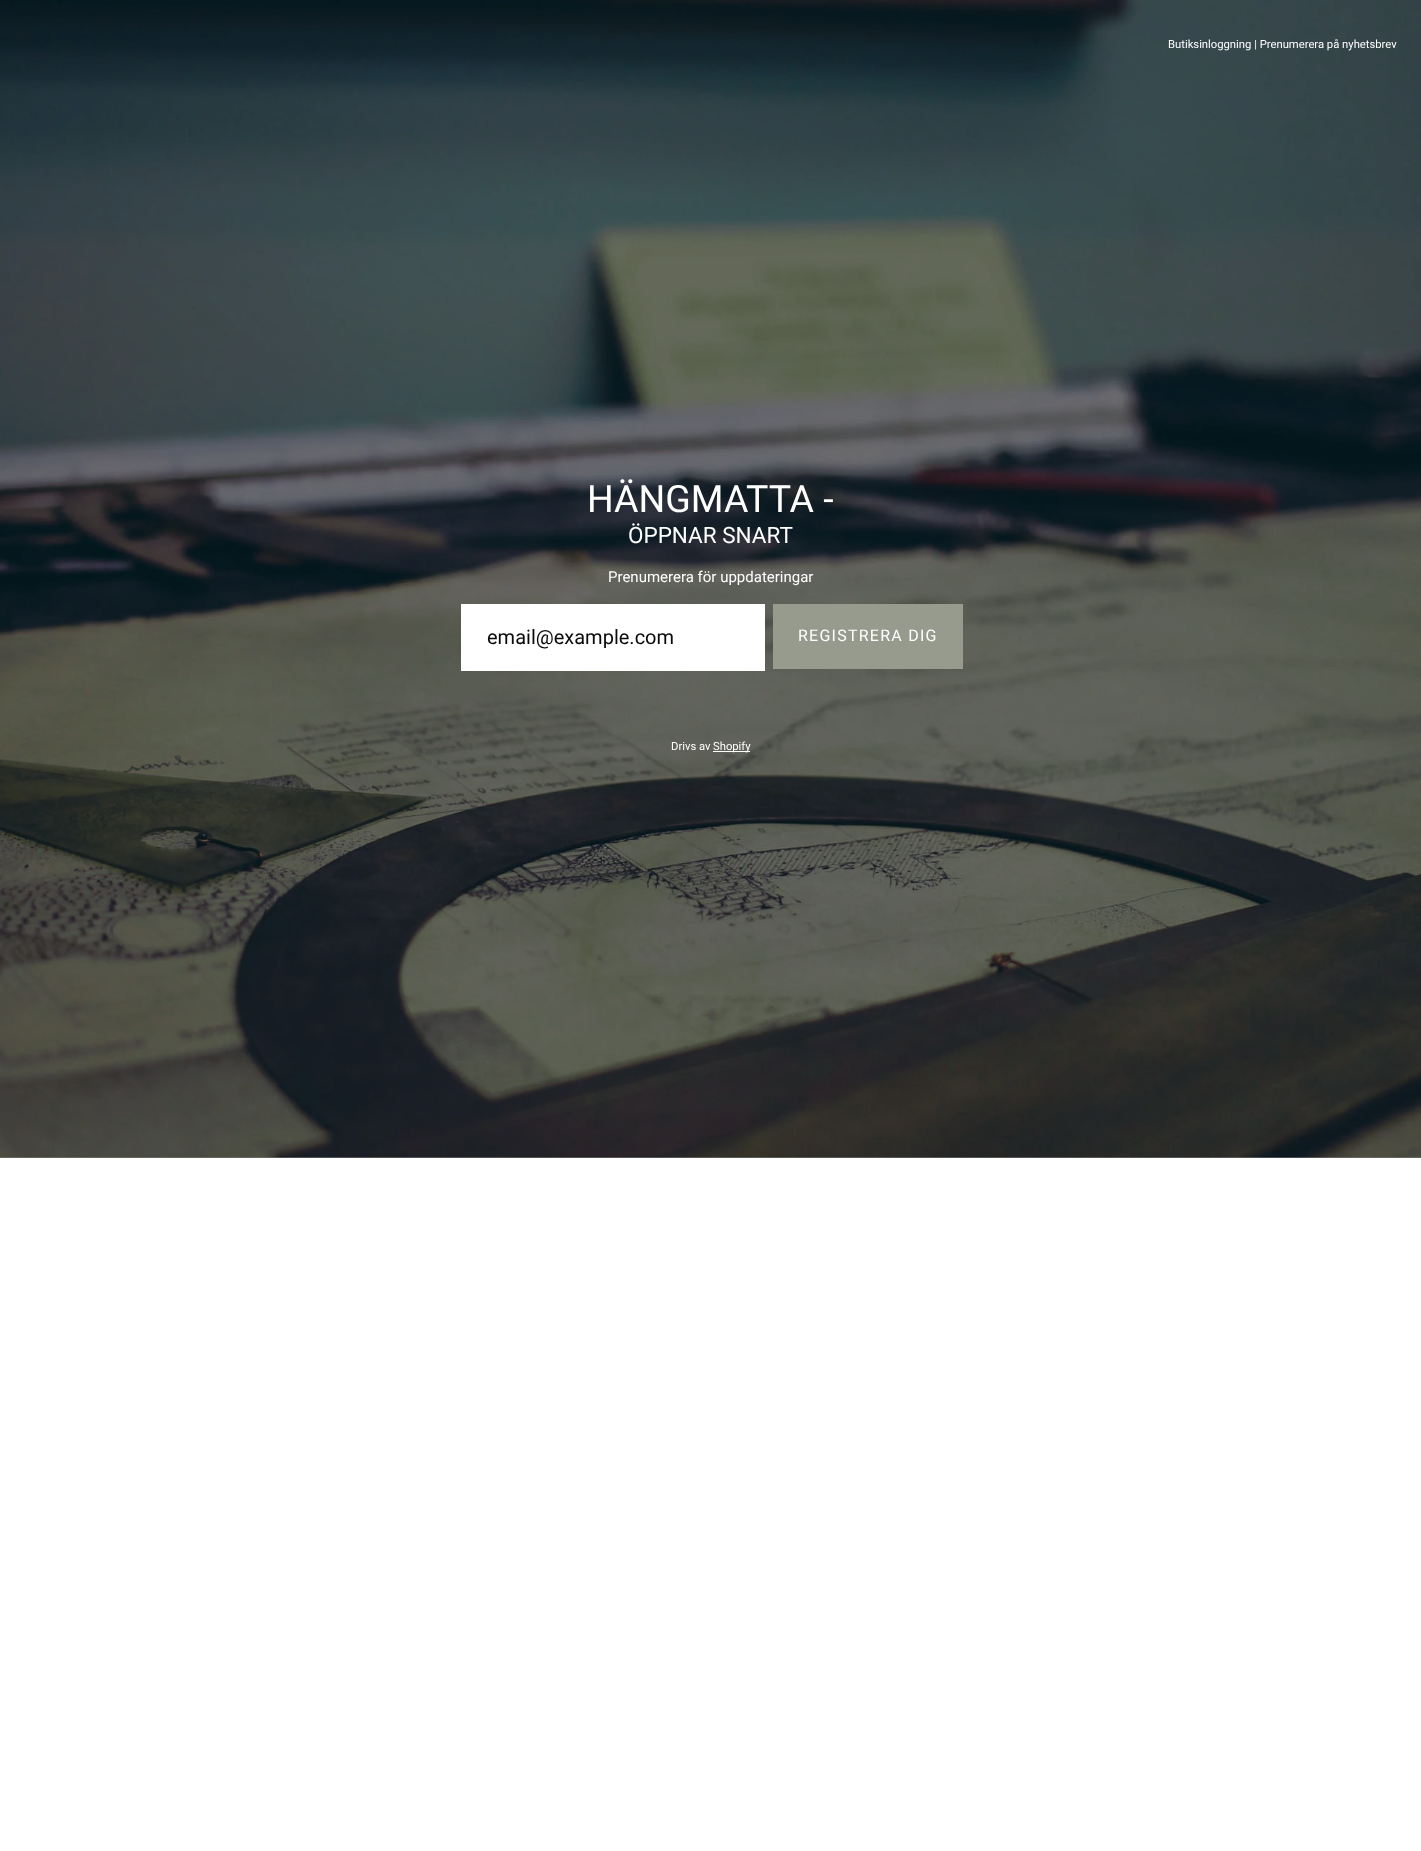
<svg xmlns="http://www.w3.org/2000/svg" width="1421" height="1851">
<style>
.a{font:11.25px Roboto;fill:#fff}
.b{font:37.5px Roboto;fill:#fff}
.c{font:22.5px Roboto;fill:#fff}
.d{font:15px Roboto;fill:#fff}
.e{font:20px Roboto;fill:#0b0b0b}
.f{font:16px Roboto;letter-spacing:1.25px;fill:#fff}
</style>
<rect width="100%" height="100%" fill="#fff"/>
<path fill="#808080" d="M0 1157h1421v1H0z"/>
<image href="1.png" x="0" y="0" width="1421" height="1158"/>
<path fill="#fff" d="M461 604h304v67H461z"/>
<path fill="#979b8d" d="M773 604h190v65H773z"/>
<path fill="#fff" d="M713 751h37v1H713z"/>
<text class="a" x="1168" y="48">Butiksinloggning | Prenumerera på nyhetsbrev</text>
<text class="b" x="587" y="512">HÄNGMATTA -</text>
<text class="c" x="628" y="543">ÖPPNAR SNART</text>
<text class="d" x="608" y="582">Prenumerera för uppdateringar</text>
<text class="e" x="487" y="644">email@example.com</text>
<text class="f" x="798" y="641">REGISTRERA DIG</text>
<text class="a" x="671" y="750">Drivs av</text>
<text class="a" x="713" y="750">Shopify</text>
</svg>
